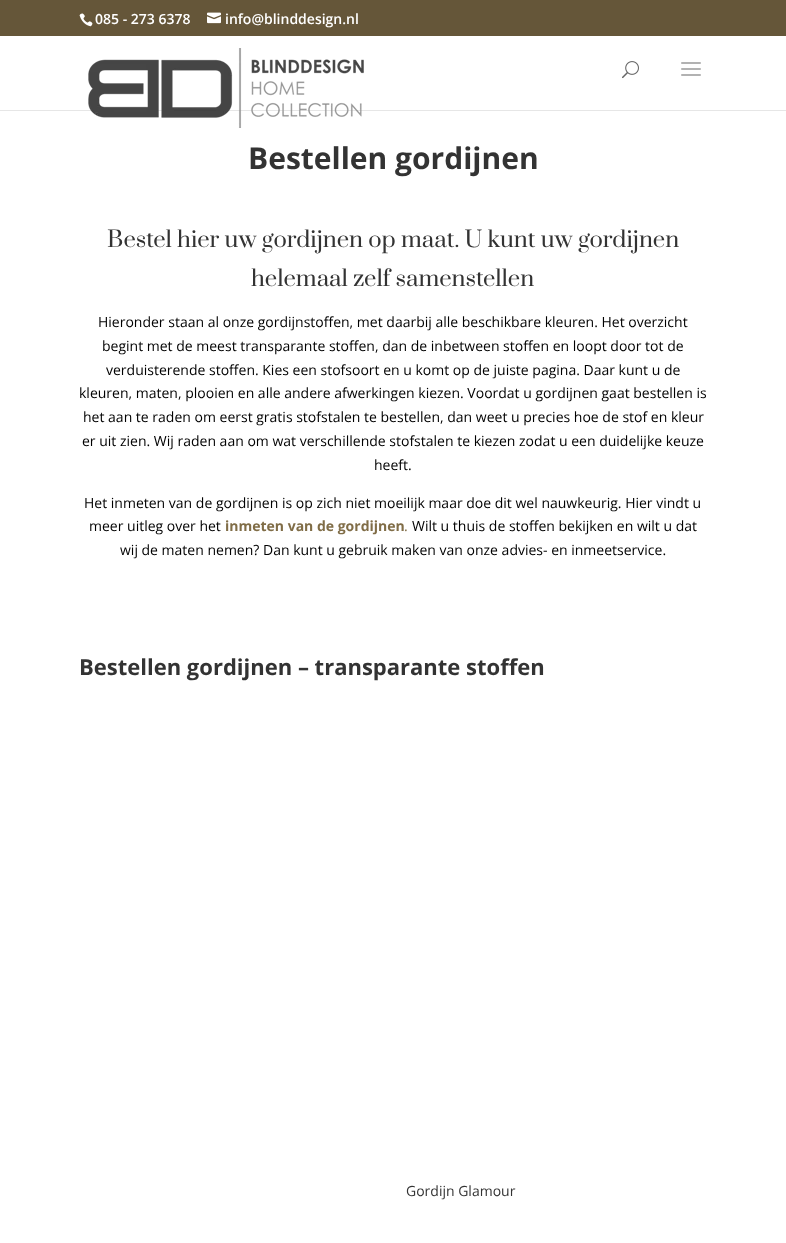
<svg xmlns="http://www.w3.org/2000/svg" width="786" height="1243">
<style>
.a{font:600 14px Open Sans;fill:#fff}
.b{font:bold 30px Open Sans;fill:#333}
.c{font:22px Prata;fill:#333}
.d{font:14px Open Sans;fill:#000}
.e{font:bold 14px Open Sans;fill:#806d47}
.f{font:14px Open Sans;fill:#806d47}
.g{font:bold 22px Open Sans;fill:#333}
.h{font:14px Open Sans;fill:#333}
</style>
<rect width="100%" height="100%" fill="#fff"/>
<path fill="#655639" d="M0 0h786v36H0z"/>
<image href="1.png" x="79" y="13" width="14" height="14"/>
<image href="2.png" x="207" y="12" width="14" height="12"/>
<path fill="#e6e6e6" d="M0 110h786v1H0z"/>
<image href="3.png" x="88" y="48" width="276" height="80"/>
<image href="4.png" x="622" y="61" width="17" height="18"/>
<image href="5.png" x="681" y="62" width="20" height="14"/>
<text class="a" x="95" y="24">085 - 273 6378</text>
<text class="a" x="225" y="24">info@blinddesign.nl</text>
<text class="b" x="248" y="169">Bestellen gordijnen</text>
<text class="c" x="107" y="247">Bestel hier uw gordijnen op maat. U kunt uw gordijnen</text>
<text class="c" x="251" y="286">helemaal zelf samenstellen</text>
<text class="d" x="98" y="327">Hieronder staan al onze gordijnstoffen, met daarbij alle beschikbare kleuren. Het overzicht</text>
<text class="d" x="102" y="351">begint met de meest transparante stoffen, dan de inbetween stoffen en loopt door tot de</text>
<text class="d" x="106" y="375">verduisterende stoffen. Kies een stofsoort en u komt op de juiste pagina. Daar kunt u de</text>
<text class="d" x="79" y="398">kleuren, maten, plooien en alle andere afwerkingen kiezen. Voordat u gordijnen gaat bestellen is</text>
<text class="d" x="83" y="422">het aan te raden om eerst gratis stofstalen te bestellen, dan weet u precies hoe de stof en kleur</text>
<text class="d" x="82" y="446">er uit zien. Wij raden aan om wat verschillende stofstalen te kiezen zodat u een duidelijke keuze</text>
<text class="d" x="374" y="470">heeft.</text>
<text class="d" x="84" y="508">Het inmeten van de gordijnen is op zich niet moeilijk maar doe dit wel nauwkeurig. Hier vindt u</text>
<text class="d" x="89" y="531">meer uitleg over het</text>
<text class="e" x="225" y="531">inmeten van de gordijnen</text>
<text class="f" x="404" y="531">.</text>
<text class="d" x="412" y="531">Wilt u thuis de stoffen bekijken en wilt u dat</text>
<text class="d" x="120" y="555">wij de maten nemen? Dan kunt u gebruik maken van onze advies- en inmeetservice.</text>
<text class="g" x="79" y="675">Bestellen gordijnen – transparante stoffen</text>
<text class="h" x="406" y="1196">Gordijn Glamour</text>
</svg>
